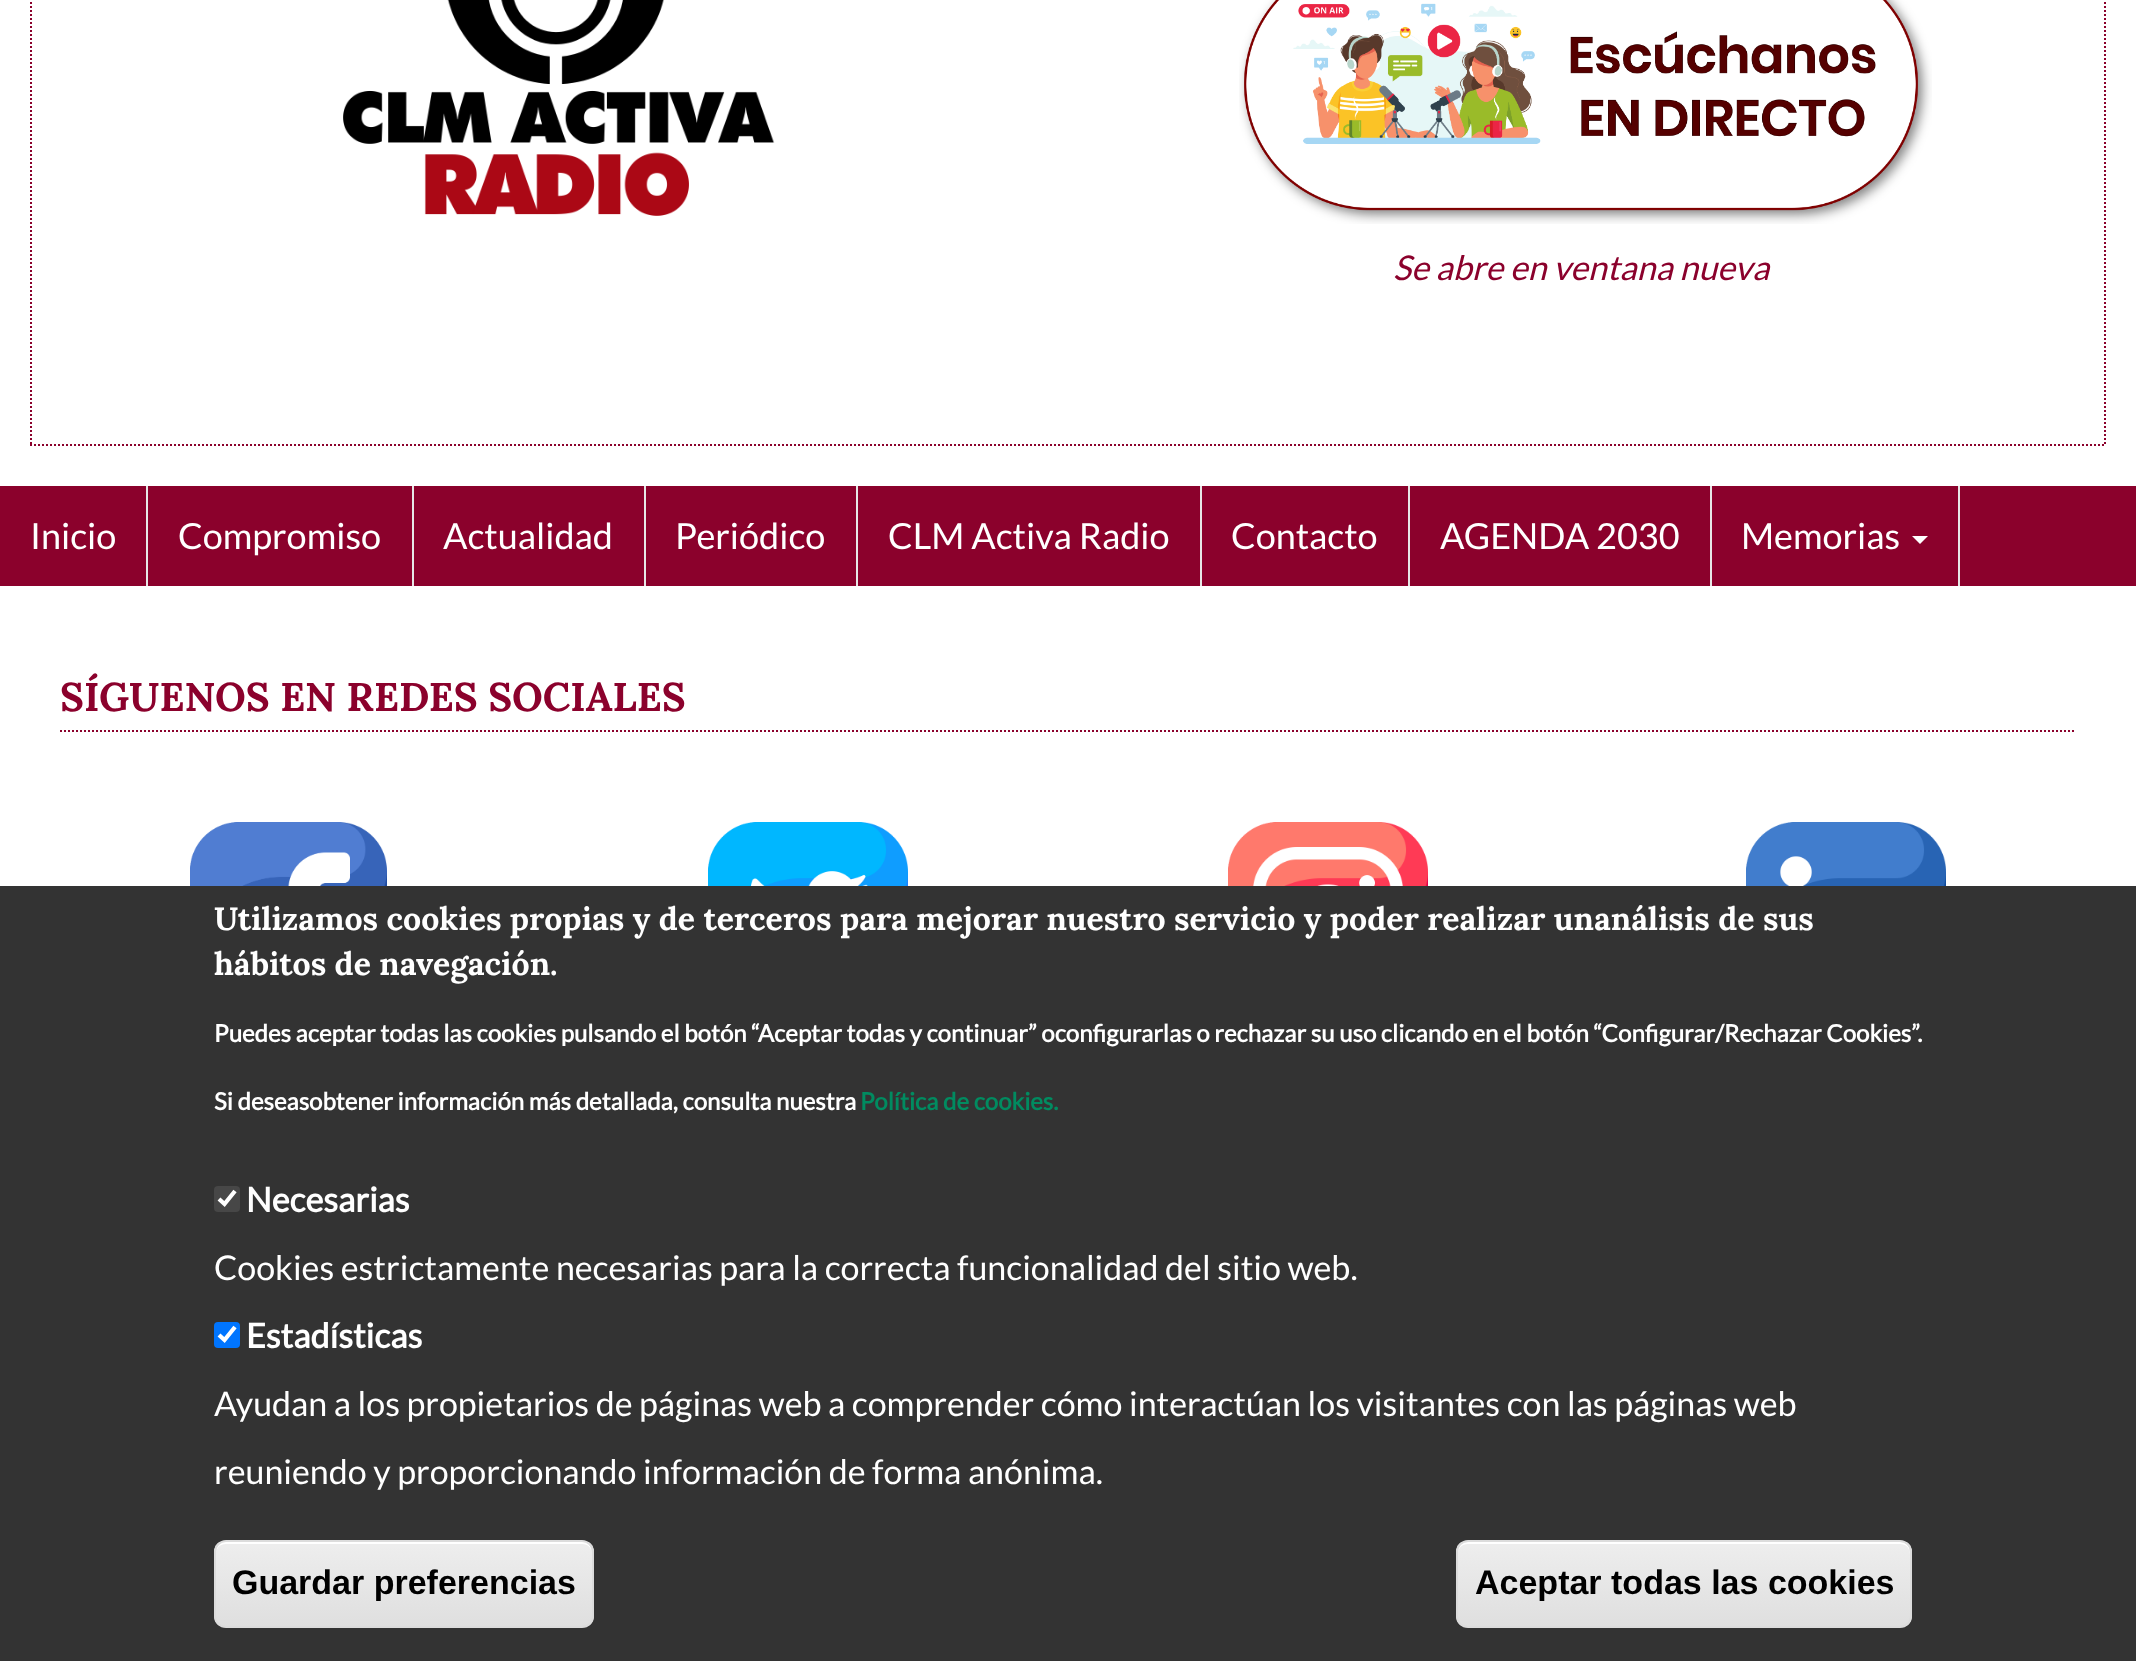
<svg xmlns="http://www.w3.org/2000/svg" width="2136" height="1661">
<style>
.a{font:italic 34px Lato;fill:#8b012c}
.b{font:36px Lato;fill:#fff}
.c{font:bold 40px Lora;fill:#8b012c}
.d{font:bold 32px Lora;fill:#fff}
.e{font:bold 24px Lato;fill:#fff}
.f{font:bold 24px Lato;fill:#018b60}
.g{font:bold 34px Lato;fill:#fff}
.h{font:34px Lato;fill:#fff}
.i{font:bold 34px Liberation Sans;fill:#000}
</style>
<defs>
<clipPath id="clip1"><rect x="214" y="1540" width="380" height="88" rx="12"/></clipPath>
<linearGradient id="g1" gradientUnits="userSpaceOnUse" x1="404" y1="1542" x2="404" y2="1626"><stop offset="0.05" stop-color="#ededed"/><stop offset="1" stop-color="#dfdfdf"/></linearGradient>
<clipPath id="clip2"><rect x="1456" y="1540" width="456" height="88" rx="12"/></clipPath>
<linearGradient id="g2" gradientUnits="userSpaceOnUse" x1="1684" y1="1542" x2="1684" y2="1626"><stop offset="0.05" stop-color="#ededed"/><stop offset="1" stop-color="#dfdfdf"/></linearGradient>
</defs>
<rect width="100%" height="100%" fill="#fff"/>
<path fill="none" stroke="#8b012c" stroke-width="2" stroke-dasharray="2 2" d="M2105-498v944"/>
<path fill="none" stroke="#8b012c" stroke-width="2" stroke-dasharray="2 2" d="M30 445h2076"/>
<path fill="none" stroke="#8b012c" stroke-width="2" stroke-dasharray="2 2" d="M31-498v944"/>
<image href="1.png" x="343" y="0" width="432" height="216"/>
<image href="2.png" x="1239" y="0" width="693" height="224"/>
<path fill="#8b012c" d="M0 486h2136v100H0z"/>
<path fill="#e7e7e7" d="M146 486h2v100H146z"/>
<path fill="#e7e7e7" d="M412 486h2v100H412z"/>
<path fill="#e7e7e7" d="M644 486h2v100H644z"/>
<path fill="#e7e7e7" d="M856 486h2v100H856z"/>
<path fill="#e7e7e7" d="M1200 486h2v100H1200z"/>
<path fill="#e7e7e7" d="M1408 486h2v100H1408z"/>
<path fill="#e7e7e7" d="M1710 486h2v100H1710z"/>
<path fill="#e7e7e7" d="M1958 486h2v100H1958z"/>
<path fill="#fff" d="M1912 536h16l-8 8z"/>
<path fill="none" stroke="#8b012c" stroke-width="2" stroke-dasharray="2 2" d="M60 731h2016"/>
<image href="3.png" x="190" y="822" width="197" height="64"/>
<image href="4.png" x="708" y="822" width="200" height="64"/>
<image href="5.png" x="1228" y="822" width="200" height="64"/>
<image href="6.png" x="1746" y="822" width="200" height="64"/>
<path fill="#333" d="M0 886h2136v775H0z"/>
<rect fill="#474747" x="214" y="1186" width="26" height="26" rx="4"/>
<path fill="none" stroke="#fff" stroke-width="4.2" d="M219 1199l5.5 5l10.5-13"/>
<rect fill="#0075ff" x="214" y="1322" width="26" height="26" rx="4"/>
<path fill="none" stroke="#fff" stroke-width="4.2" d="M219 1335l5.5 5l10.5-13"/>
<g clip-path="url(#clip1)">
<path fill="url(#g1)" d="M214 1542h380v84H214z"/>
</g>
<path fill="#fff" d="M226 1544h356c6 0 10 4 10 10c0-5-2-11-8-12h-360c-6 1-8 7-8 12c0-6 4-10 10-10z"/>
<rect fill="none" stroke="#dcdcdc" stroke-width="2" x="215" y="1541" width="378" height="86" rx="11"/>
<g clip-path="url(#clip2)">
<path fill="url(#g2)" d="M1456 1542h456v84H1456z"/>
</g>
<path fill="#fff" d="M1468 1544h432c6 0 10 4 10 10v-2c0-6-4-10-10-10h-432c-6 0-10 4-10 10v2c0-6 4-10 10-10z"/>
<rect fill="none" stroke="#dcdcdc" stroke-width="2" x="1457" y="1541" width="454" height="86" rx="11"/>
<text class="a" x="1393" y="280">Se abre en ventana nueva</text>
<text class="b" x="30" y="549">Inicio</text>
<text class="b" x="178" y="549">Compromiso</text>
<text class="b" x="443" y="549">Actualidad</text>
<text class="b" x="675" y="549">Periódico</text>
<text class="b" x="888" y="549">CLM Activa Radio</text>
<text class="b" x="1231" y="549">Contacto</text>
<text class="b" x="1440" y="549">AGENDA 2030</text>
<text class="b" x="1741" y="549">Memorias</text>
<text class="c" x="60" y="711">SÍGUENOS EN REDES SOCIALES</text>
<text class="d" x="214" y="930">Utilizamos cookies propias y de terceros para mejorar nuestro servicio y poder realizar unanálisis de sus</text>
<text class="d" x="214" y="975">hábitos de navegación.</text>
<text class="e" x="214" y="1042">Puedes aceptar todas las cookies pulsando el botón “Aceptar todas y continuar” oconfigurarlas o rechazar su uso clicando en el botón “Configurar/Rechazar Cookies”.</text>
<text class="e" x="214" y="1110">Si deseasobtener información más detallada, consulta nuestra</text>
<text class="f" x="860" y="1110">Política de cookies.</text>
<text class="g" x="246" y="1212">Necesarias</text>
<text class="h" x="214" y="1280">Cookies estrictamente necesarias para la correcta funcionalidad del sitio web.</text>
<text class="g" x="246" y="1348">Estadísticas</text>
<text class="h" x="214" y="1416">Ayudan a los propietarios de páginas web a comprender cómo interactúan los visitantes con las páginas web</text>
<text class="h" x="214" y="1484">reuniendo y proporcionando información de forma anónima.</text>
<text class="i" x="232" y="1594">Guardar preferencias</text>
<text class="i" x="1475" y="1594">Aceptar todas las cookies</text>
</svg>
